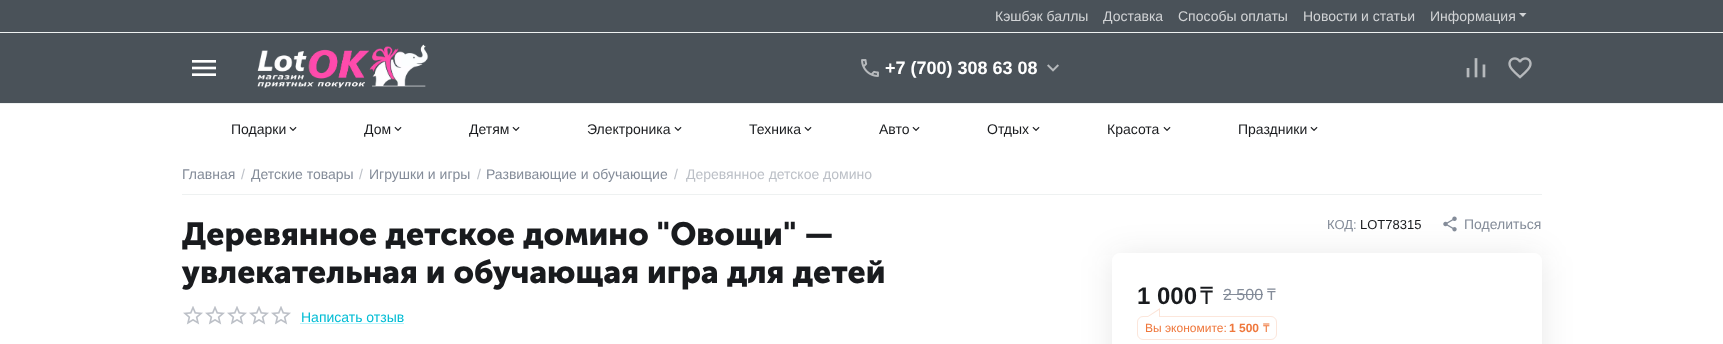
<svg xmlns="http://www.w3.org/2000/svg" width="1723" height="344">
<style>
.a{font:14px Liberation Sans;fill:#d2d4d6}
.b{font:bold 18px Liberation Sans;fill:#fff}
.c{font:14px Liberation Sans;fill:#191b1e}
.d{font:14px Liberation Sans;fill:#848c99}
.e{font:14px Liberation Sans;fill:#bcc0c7}
.f{font:bold 32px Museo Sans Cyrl;fill:#191b1e}
.g{font:14px Liberation Sans;fill:#00bcd4}
.h{font:13px Liberation Sans;fill:#848c99}
.i{font:13px Liberation Sans;fill:#191b1e}
.j{font:bold 24px Liberation Sans;fill:#191b1e}
.k{font:24px Noto Sans;fill:#191b1e}
.l{font:16px Liberation Sans;fill:#848c99}
.m{font:16px Noto Sans;fill:#848c99}
.n{font:12px Liberation Sans;fill:#ef783d}
.o{font:bold 12px Liberation Sans;fill:#ef783d}
.p{font:12px Noto Sans;fill:#ef783d}
</style>
<rect width="100%" height="100%" fill="#fff"/>
<path fill="#4a5259" d="M0 0h1723v32H0z"/>
<path fill="#eef1f1" d="M0 32h1723v1H0z"/>
<path fill="#d2d4d6" d="M1523 17l-4-4h7.5z"/>
<path fill="#4a5259" d="M0 33h1723v70H0z"/>
<image href="1.png" x="192" y="60" width="24" height="16"/>
<image href="2.png" x="257" y="44" width="172" height="44"/>
<image href="3.png" x="861" y="59" width="18" height="18"/>
<image href="4.png" x="1047" y="64" width="12" height="8"/>
<image href="5.png" x="1466" y="58" width="20" height="20"/>
<image href="6.png" x="1508" y="57" width="24" height="22"/>
<path fill="#eef1f1" d="M0 103h1723v1H0z"/>
<image href="7.png" x="289" y="126" width="8" height="5"/>
<image href="7.png" x="394" y="126" width="8" height="5"/>
<image href="7.png" x="512" y="126" width="8" height="5"/>
<image href="7.png" x="674" y="126" width="8" height="5"/>
<image href="7.png" x="804" y="126" width="8" height="5"/>
<image href="7.png" x="912" y="126" width="8" height="5"/>
<image href="7.png" x="1032" y="126" width="8" height="5"/>
<image href="7.png" x="1163" y="126" width="8" height="5"/>
<image href="7.png" x="1310" y="126" width="8" height="5"/>
<path fill="#eef1f1" d="M182 194h1360v1H182z"/>
<image href="8.png" x="183" y="306" width="108" height="19"/>
<path fill="none" stroke="#75e9f8" stroke-dasharray="1 1" d="M300.5 323.5h103"/>
<rect fill="#191b1e1a" filter="blur(16px)" x="1112" y="255" width="430" height="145" rx="8"/>
<image href="9.png" x="1443" y="216" width="14" height="16"/>
<rect fill="#fff" x="1112" y="253" width="430" height="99" rx="8"/>
<path fill="#848c99" d="M1223 294h40v1H1223z"/>
<rect fill="none" stroke="#fce6db" x="1137.5" y="316.5" width="139" height="23" rx="5.5"/>
<path fill="#fce4d8" d="M1160 308v8h-12z"/>
<path fill="#fff" d="M1159 310v7h-11z"/>
<text class="a" x="995" y="21">Кэшбэк баллы</text>
<text class="a" x="1103" y="21">Доставка</text>
<text class="a" x="1178" y="21">Способы оплаты</text>
<text class="a" x="1303" y="21">Новости и статьи</text>
<text class="a" x="1430" y="21">Информация</text>
<text class="b" x="885" y="74">+7 (700) 308 63 08</text>
<text class="c" x="231" y="134">Подарки</text>
<text class="c" x="364" y="134">Дом</text>
<text class="c" x="469" y="134">Детям</text>
<text class="c" x="587" y="134">Электроника</text>
<text class="c" x="749" y="134">Техника</text>
<text class="c" x="879" y="134">Авто</text>
<text class="c" x="987" y="134">Отдых</text>
<text class="c" x="1107" y="134">Красота</text>
<text class="c" x="1238" y="134">Праздники</text>
<text class="d" x="182" y="179">Главная</text>
<text class="e" x="241" y="179">/</text>
<text class="d" x="251" y="179">Детские товары</text>
<text class="e" x="359" y="179">/</text>
<text class="d" x="369" y="179">Игрушки и игры</text>
<text class="e" x="477" y="179">/</text>
<text class="d" x="486" y="179">Развивающие и обучающие</text>
<text class="e" x="674" y="179">/</text>
<text class="e" x="686" y="179">Деревянное детское домино</text>
<text class="f" x="182" y="245">Деревянное детское домино "Овощи" —</text>
<text class="f" x="182" y="283">увлекательная и обучающая игра для детей</text>
<text class="g" x="301" y="322">Написать отзыв</text>
<text class="h" x="1327" y="229">КОД:</text>
<text class="i" x="1360" y="229">LOT78315</text>
<text class="d" x="1464" y="229">Поделиться</text>
<text class="j" x="1137" y="304">1 000</text>
<text class="k" x="1200" y="304">₸</text>
<text class="l" x="1223" y="300">2 500</text>
<text class="m" x="1267" y="300">₸</text>
<text class="n" x="1145" y="332">Вы экономите:</text>
<text class="o" x="1229" y="332">1 500</text>
<text class="p" x="1263" y="332">₸</text>
</svg>
